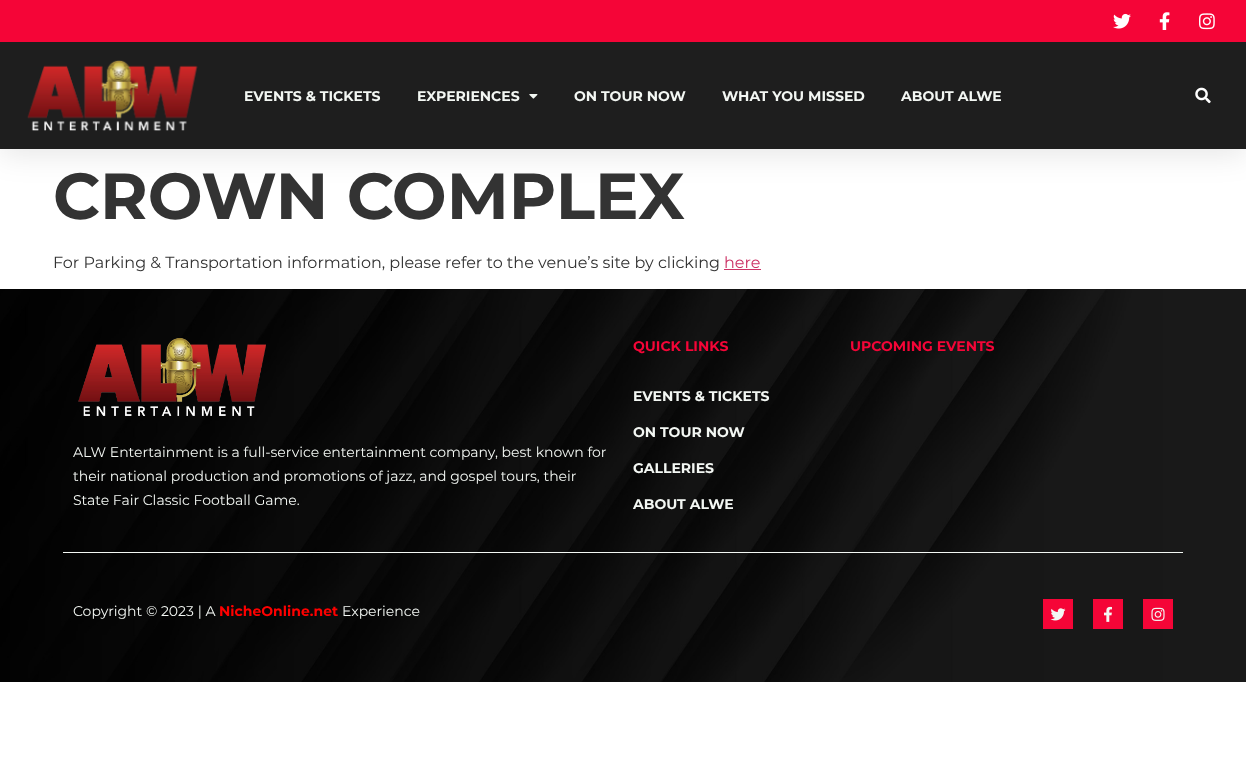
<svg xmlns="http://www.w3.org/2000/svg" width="1246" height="763">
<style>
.a{font:bold 14px Montserrat;fill:#f3f7f3}
.b{font:bold 65px Montserrat;fill:#333}
.c{font:16px Montserrat;fill:#333}
.d{font:16px Montserrat;fill:#c36}
.e{font:bold 14px Montserrat;fill:#f50537}
.f{font:14px Montserrat;fill:#f3f7f3}
.g{font:bold 14px Montserrat;fill:#f00}
</style>
<rect width="100%" height="100%" fill="#fff"/>
<path fill="#0000001a" filter="blur(15px)" d="M0 5h1246v149H0z"/>
<path fill="#f50537" d="M0 0h1246v42H0z"/>
<image href="1.png" x="1113" y="13" width="18" height="16"/>
<image href="2.png" x="1159" y="12" width="11" height="18"/>
<image href="3.png" x="1199" y="13" width="16" height="17"/>
<path fill="#1e1e1e" d="M0 42h1246v107H0z"/>
<image href="4.png" x="27" y="60" width="171" height="71"/>
<image href="5.png" x="529" y="94" width="9" height="5"/>
<image href="6.png" x="1195" y="87" width="16" height="17"/>
<path fill="#c36" d="M724 269h37v1H724z"/>
<image href="7.png" x="0" y="289" width="1246" height="393"/>
<image href="8.png" x="78" y="338" width="188" height="78"/>
<path fill="#f3f7f3" d="M63 552h1120v1H63z"/>
<path fill="#f50537" d="M1043 599h30v30H1043z"/>
<image href="9.png" x="1050" y="608" width="16" height="13"/>
<path fill="#f50537" d="M1093 599h30v30H1093z"/>
<image href="10.png" x="1104" y="606" width="8" height="16"/>
<path fill="#f50537" d="M1143 599h30v30H1143z"/>
<image href="11.png" x="1151" y="607" width="14" height="14"/>
<text class="a" x="244" y="101">EVENTS &amp; TICKETS</text>
<text class="a" x="417" y="101">EXPERIENCES</text>
<text class="a" x="574" y="101">ON TOUR NOW</text>
<text class="a" x="722" y="101">WHAT YOU MISSED</text>
<text class="a" x="901" y="101">ABOUT ALWE</text>
<text class="b" x="53" y="219">CROWN COMPLEX</text>
<text class="c" x="53" y="268">For Parking &amp; Transportation information, please refer to the venue’s site by clicking</text>
<text class="d" x="724" y="268">here</text>
<text class="e" x="633" y="351">QUICK LINKS</text>
<text class="a" x="633" y="401">EVENTS &amp; TICKETS</text>
<text class="a" x="633" y="437">ON TOUR NOW</text>
<text class="a" x="633" y="473">GALLERIES</text>
<text class="a" x="633" y="509">ABOUT ALWE</text>
<text class="e" x="850" y="351">UPCOMING EVENTS</text>
<text class="f" x="73" y="457">ALW Entertainment is a full-service entertainment company, best known for</text>
<text class="f" x="73" y="481">their national production and promotions of jazz, and gospel tours, their</text>
<text class="f" x="73" y="505">State Fair Classic Football Game.</text>
<text class="f" x="73" y="616">Copyright © 2023 | A</text>
<text class="g" x="219" y="616">NicheOnline.net</text>
<text class="f" x="342" y="616">Experience</text>
</svg>
